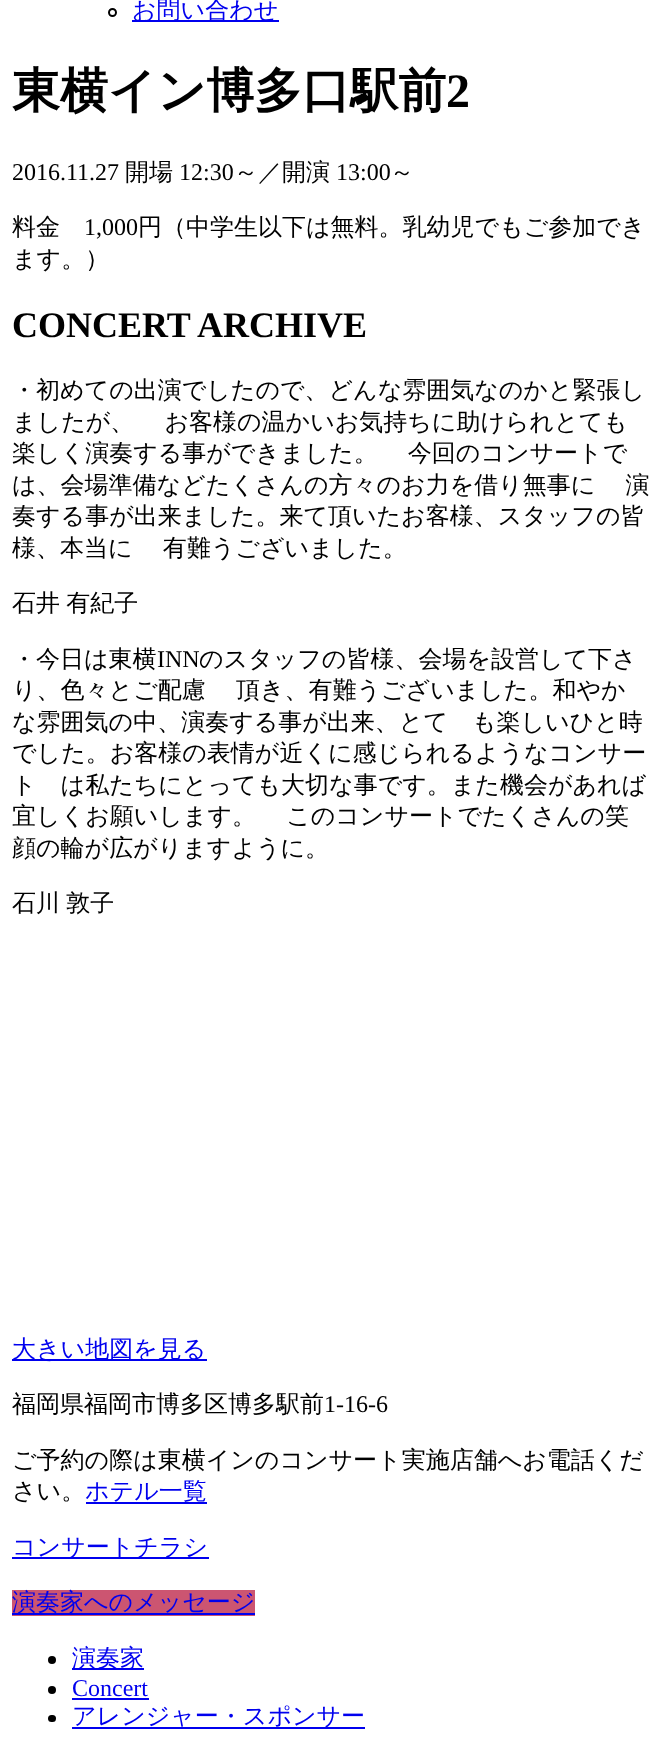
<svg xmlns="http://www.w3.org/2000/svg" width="661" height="1741">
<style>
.a{font:500 24px WenQuanYi Zen Hei;fill:#00e}
.b{font:bold 48px WenQuanYi Zen Hei;fill:#000}
.c{font:bold 48px Liberation Serif;fill:#000}
.d{font:24px Liberation Serif;fill:#000}
.e{font:500 24px WenQuanYi Zen Hei;fill:#000}
.f{font:bold 36px Liberation Serif;fill:#000}
.g{font:24px Liberation Serif;fill:#00e}
</style>
<rect width="100%" height="100%" fill="#fff"/>
<circle fill="none" stroke="#000" stroke-width="2" cx="112.5" cy="12.5" r="3.5"/>
<path fill="#00e" d="M132 20h147v2H132z"/>
<path fill="#00e" d="M12 1359h195v2H12z"/>
<path fill="#00e" d="M86 1502h121v2H86z"/>
<path fill="#00e" d="M12 1557h197v2H12z"/>
<path fill="#cc5571" d="M12 1590h243v26H12z"/>
<path fill="#00e" d="M12 1613h243v2H12z"/>
<circle fill="#000" cx="52" cy="1660" r="4"/>
<path fill="#00e" d="M72 1668h72v2H72z"/>
<circle fill="#000" cx="52" cy="1690" r="4"/>
<path fill="#00e" d="M72 1698h77v2H72z"/>
<rect fill="#000" x="48" y="1715" width="8" height="7" rx="3.5"/>
<path fill="#00e" d="M72 1727h293v2H72z"/>
<text class="a" x="132" y="18">お問い合わせ</text>
<text class="b" x="12" y="107">東横イン博多口駅前</text>
<text class="c" x="446" y="107">2</text>
<text class="d" x="12" y="180">2016.11.27</text>
<text class="e" x="125" y="180">開場</text>
<text class="d" x="179" y="180">12:30</text>
<text class="e" x="234" y="180">～／開演</text>
<text class="d" x="336" y="180">13:00</text>
<text class="e" x="390" y="180">～</text>
<text class="e" x="12" y="235">料金</text>
<text class="d" x="84" y="235">1,000</text>
<text class="e" x="138" y="235">円（中学生以下は無料。乳幼児でもご参加でき</text>
<text class="e" x="12" y="267">ます。）</text>
<text class="f" x="12" y="337">CONCERT ARCHIVE</text>
<text class="e" x="12" y="398">・初めての出演でしたので、どんな雰囲気なのかと緊張し</text>
<text class="e" x="12" y="430" word-spacing="-1">ましたが、 　お客様の温かいお気持ちに助けられとても</text>
<text class="e" x="12" y="461" word-spacing="-1">楽しく演奏する事ができました。 　今回のコンサートで</text>
<text class="e" x="12" y="493" word-spacing="-1">は、会場準備などたくさんの方々のお力を借り無事に 　演</text>
<text class="e" x="12" y="524">奏する事が出来ました。来て頂いたお客様、スタッフの皆</text>
<text class="e" x="12" y="556" word-spacing="-1">様、本当に 　有難うございました。</text>
<text class="e" x="12" y="611" word-spacing="-1">石井 有紀子</text>
<text class="e" x="12" y="667">・今日は東横</text>
<text class="d" x="157" y="667">INN</text>
<text class="e" x="199" y="667">のスタッフの皆様、会場を設営して下さ</text>
<text class="e" x="12" y="698" word-spacing="-1">り、色々とご配慮 　頂き、有難うございました。和やか</text>
<text class="e" x="12" y="730">な雰囲気の中、演奏する事が出来、とて　も楽しいひと時</text>
<text class="e" x="12" y="761">でした。お客様の表情が近くに感じられるようなコンサー</text>
<text class="e" x="12" y="793">ト　は私たちにとっても大切な事です。また機会があれば</text>
<text class="e" x="12" y="824" word-spacing="-1">宜しくお願いします。 　このコンサートでたくさんの笑</text>
<text class="e" x="12" y="856">顔の輪が広がりますように。</text>
<text class="e" x="12" y="911" word-spacing="-1">石川 敦子</text>
<text class="a" x="12" y="1357">大きい地図を見る</text>
<text class="e" x="12" y="1412">福岡県福岡市博多区博多駅前</text>
<text class="d" x="324" y="1412">1-16-6</text>
<text class="e" x="12" y="1468">ご予約の際は東横インのコンサート実施店舗へお電話くだ</text>
<text class="e" x="12" y="1499">さい。</text>
<text class="a" x="85" y="1499">ホテル一覧</text>
<text class="a" x="12" y="1555">コンサートチラシ</text>
<text class="a" x="12" y="1610">演奏家へのメッセージ</text>
<text class="a" x="72" y="1666">演奏家</text>
<text class="g" x="72" y="1696">Concert</text>
<text class="a" x="72" y="1724">アレンジャー・スポンサー</text>
</svg>
